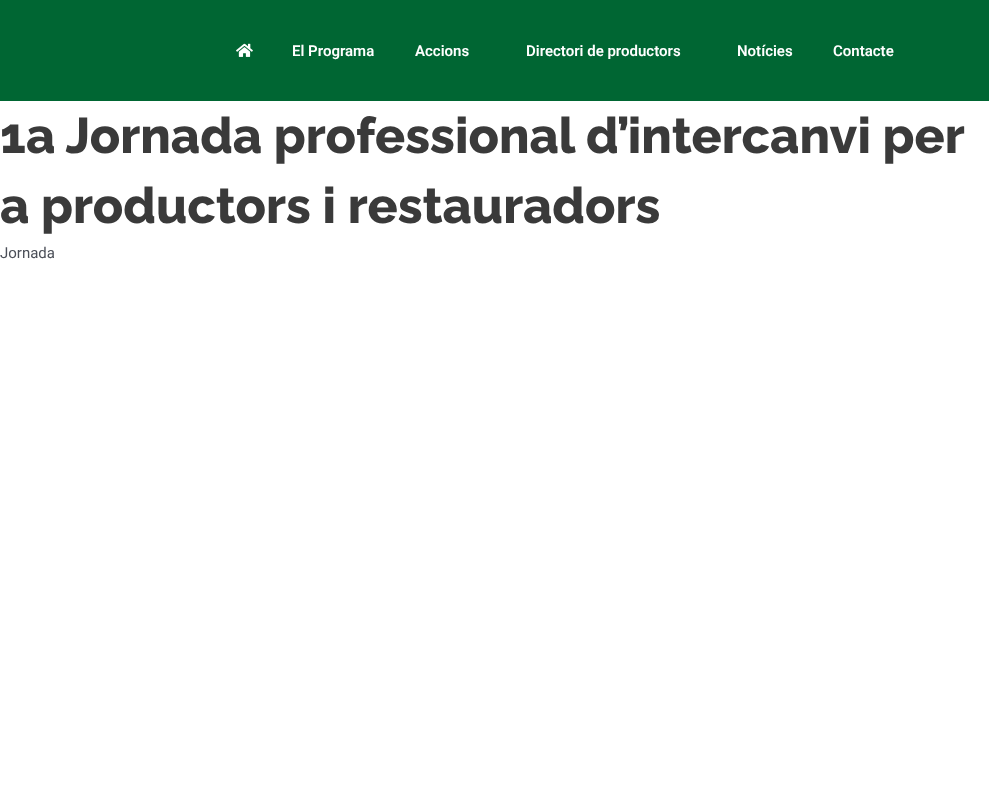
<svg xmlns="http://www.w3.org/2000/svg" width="989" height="807">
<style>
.a{font:600 15px Roboto;fill:#fff}
.b{font:800 50px Raleway;fill:#3a3a3a}
.c{font:15px Roboto;fill:#4b4f58}
</style>
<rect width="100%" height="100%" fill="#fff"/>
<path fill="#063" d="M0 0h989v101H0z"/>
<image href="1.png" x="236" y="43" width="17" height="14"/>
<text class="a" x="292" y="56">El Programa</text>
<text class="a" x="415" y="56">Accions</text>
<text class="a" x="526" y="56">Directori de productors</text>
<text class="a" x="737" y="56">Notícies</text>
<text class="a" x="833" y="56">Contacte</text>
<text class="b" x="0" y="153">1a Jornada professional d’intercanvi per</text>
<text class="b" x="0" y="223">a productors i restauradors</text>
<text class="c" x="0" y="258">Jornada</text>
</svg>
